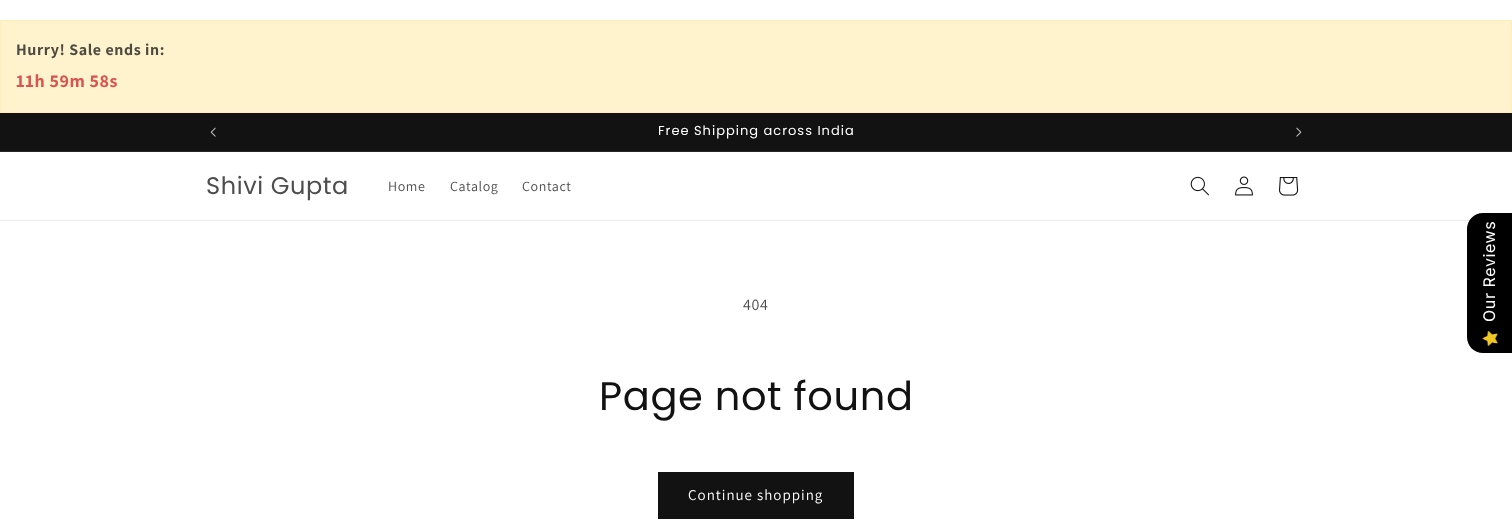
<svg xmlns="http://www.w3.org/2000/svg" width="1512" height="530">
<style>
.a{font:bold 16px Assistant;letter-spacing:0.6px;fill:#4d4a41}
.b{font:bold 18px Assistant;letter-spacing:0.6px;fill:#d9534f}
.c{font:13px Poppins;letter-spacing:1px;fill:#fff}
.d{font:24px Poppins;letter-spacing:0.6px;fill:#4d4d4d}
.e{font:14px Assistant;letter-spacing:0.6px;fill:#4d4d4d}
.f{font:16px Inter;letter-spacing:0.6px;fill:#fff}
.g{font:16px Assistant;letter-spacing:0.6px;fill:#4d4d4d}
.h{font:40px Poppins;letter-spacing:0.6px;fill:#121212}
.i{font:15px Assistant;letter-spacing:1px;fill:#fff}
</style>
<rect width="100%" height="100%" fill="#fff"/>
<path fill="#fff3cd" stroke="#ffeeba" d="M0.5 20.5h1511v92H0.5z"/>
<path fill="#121212" d="M0 113h1512v38H0z"/>
<path fill="#252525" d="M0 151h1512v1H0z"/>
<image href="1.png" x="210" y="127" width="6" height="10"/>
<image href="2.png" x="1296" y="127" width="6" height="10"/>
<path fill="#ececec" d="M0 220h1470v1H0z"/>
<image href="3.png" x="1190" y="176" width="19" height="20"/>
<image href="4.png" x="1235" y="176" width="18" height="20"/>
<image href="5.png" x="1279" y="177" width="20" height="19"/>
<path fill="#000" d="M1467 337v-108c0-9 7-16 16-16h29v140h-29c-9 0-16-7-16-16z"/>
<image href="6.png" x="1482" y="331" width="16" height="15"/>
<path fill="#121212" d="M658 472h196v47H658z"/>
<text class="a" x="16" y="55">Hurry! Sale ends in:</text>
<text class="b" x="16" y="87">11h 59m 58s</text>
<text class="c" x="658" y="135">Free Shipping across India</text>
<text class="d" x="206" y="194">Shivi Gupta</text>
<text class="e" x="388" y="191">Home</text>
<text class="e" x="450" y="191">Catalog</text>
<text class="e" x="522" y="191">Contact</text>
<text class="f" x="1495" y="322" transform="rotate(-90 1495 322)">Our Reviews</text>
<text class="g" x="743" y="310">404</text>
<text class="h" x="599" y="410">Page not found</text>
<text class="i" x="688" y="500">Continue shopping</text>
</svg>
